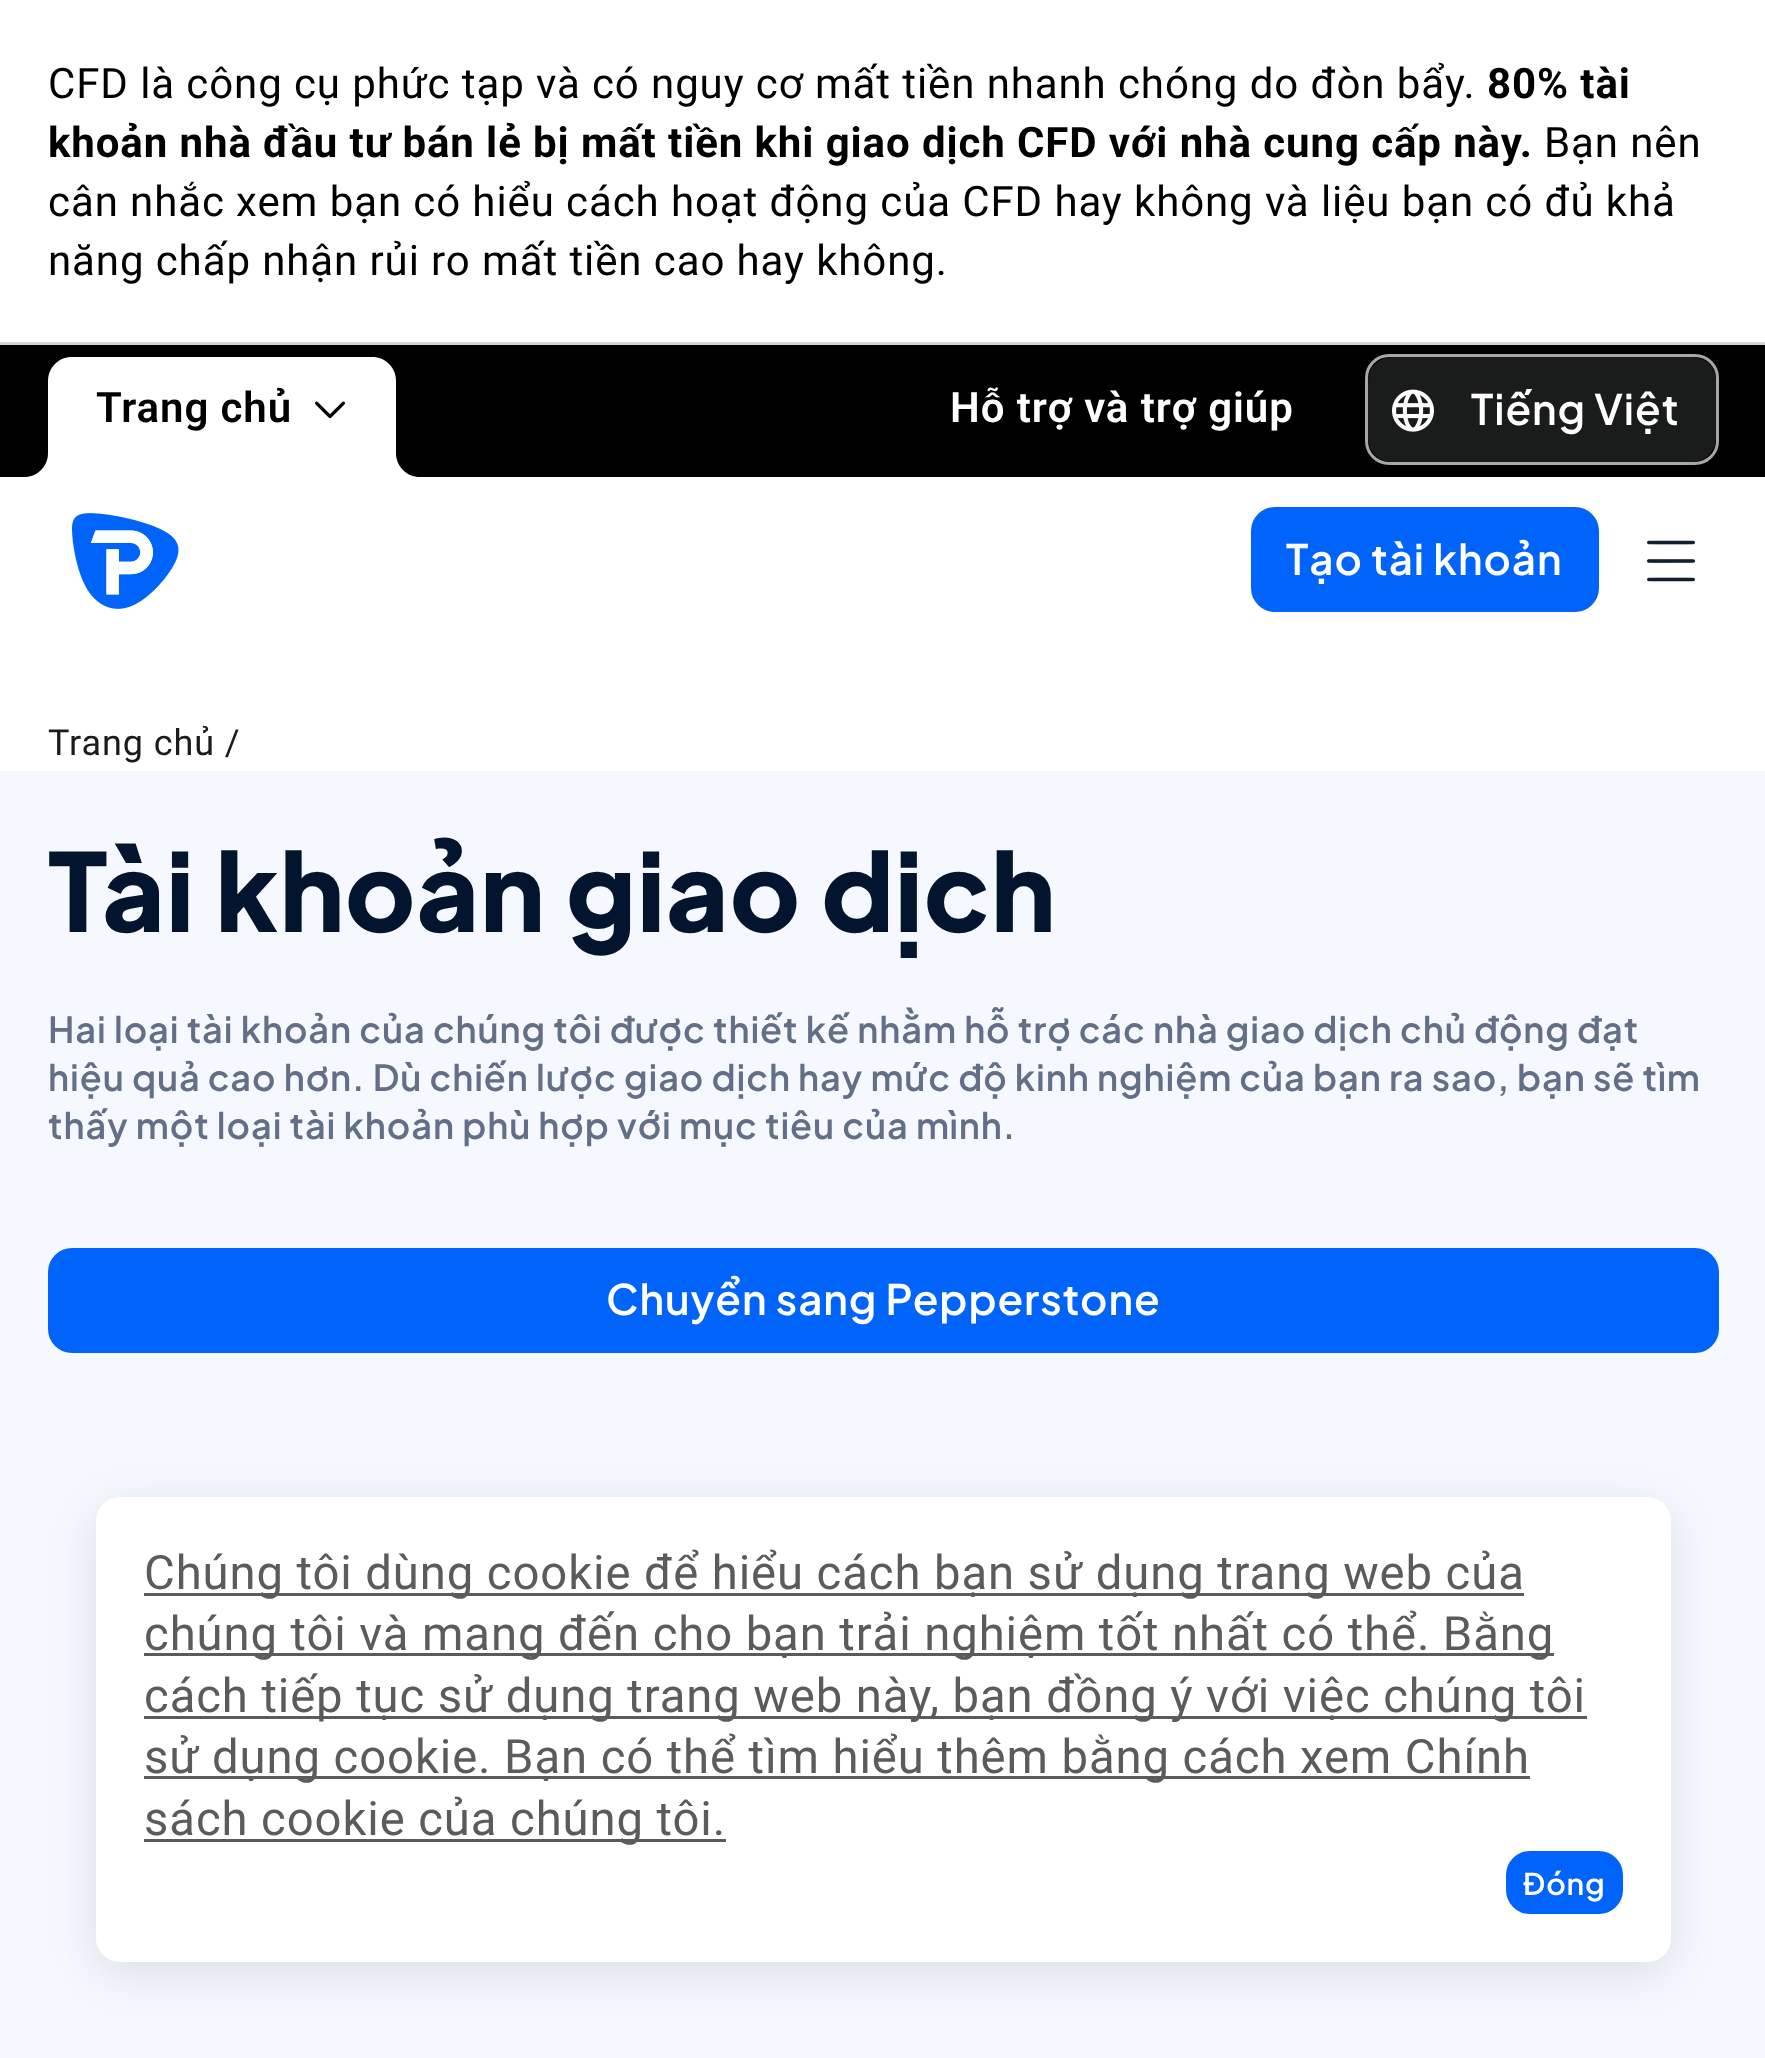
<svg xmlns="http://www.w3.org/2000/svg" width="1765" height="2058">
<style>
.a{font:42px Roboto;letter-spacing:0.9px;fill:#000}
.b{font:bold 42px Roboto;letter-spacing:0.9px;fill:#000}
.c{font:600 42px Roboto;letter-spacing:0.9px;fill:#000}
.d{font:600 42px Roboto;letter-spacing:0.9px;fill:#fff}
.e{font:600 42px Plus Jakarta Sans;letter-spacing:0.9px;fill:#fff}
.f{font:36px Roboto;letter-spacing:0.9px;fill:#1a1b1b}
.g{font:800 108px Plus Jakarta Sans;letter-spacing:0.9px;fill:#03142e}
.h{font:600 36px Plus Jakarta Sans;letter-spacing:0.9px;fill:#626f86}
.i{font:47.25px Roboto;letter-spacing:0.9px;fill:#5a5b5b}
.j{font:600 30px Plus Jakarta Sans;letter-spacing:0.9px;fill:#fff}
</style>
<rect width="100%" height="100%" fill="#fff"/>
<path fill="#d6d6d6" d="M0 342h1765v3H0z"/>
<path fill="#000" d="M0 345h1765v132H0z"/>
<path fill="#fff" d="M72 357h300c13.5 0 24 10.5 24 24v96h-348v-96c0-13.5 10.5-24 24-24z"/>
<image href="1.png" x="315" y="401" width="30" height="18"/>
<path fill="#fff" d="M24 453h24v24H24z"/>
<path fill="#000" d="M24 429c13.5 0 24 10.5 24 24c0 13.5-10.5 24-24 24z"/>
<path fill="#fff" d="M396 453h24v24H396z"/>
<path fill="#000" d="M420 429v48c-13.5 0-24-10.5-24-24c0-13.5 10.5-24 24-24z"/>
<rect fill="none" stroke="#a6a6a6" stroke-width="3" x="1366.5" y="355.5" width="351" height="108" rx="22.5"/>
<rect fill="#1a1b1b" x="1368" y="357" width="348" height="105" rx="24"/>
<image href="2.png" x="1392" y="389" width="42" height="43"/>
<image href="3.png" x="72" y="513" width="107" height="96"/>
<rect fill="#0064fa" x="1251" y="507" width="348" height="105" rx="24"/>
<image href="4.png" x="1647" y="540" width="48" height="42"/>
<path fill="#f5f9ff" d="M0 771h1765v1287H0z"/>
<rect fill="#0064fa" x="48" y="1248" width="1671" height="105" rx="24"/>
<rect fill="#0000001a" filter="blur(24px)" x="96" y="1509" width="1575" height="465" rx="24"/>
<rect fill="#fff" x="96" y="1497" width="1575" height="465" rx="24"/>
<path fill="#5a5b5b" d="M144 1593h1380v3H144z"/>
<path fill="#5a5b5b" d="M144 1653h1410v3H144z"/>
<path fill="#5a5b5b" d="M144 1716h1443v3H144z"/>
<path fill="#5a5b5b" d="M144 1776h1386v3H144z"/>
<path fill="#5a5b5b" d="M144 1839h582v3H144z"/>
<rect fill="#0064fa" x="1506" y="1851" width="117" height="63" rx="24"/>
<text class="a" x="48" y="98">CFD là công cụ phức tạp và có nguy cơ mất tiền nhanh chóng do đòn bẩy.</text>
<text class="b" x="1487" y="98">80% tài</text>
<text class="b" x="48" y="157">khoản nhà đầu tư bán lẻ bị mất tiền khi giao dịch CFD với nhà cung cấp này.</text>
<text class="a" x="1544" y="157">Bạn nên</text>
<text class="a" x="48" y="216">cân nhắc xem bạn có hiểu cách hoạt động của CFD hay không và liệu bạn có đủ khả</text>
<text class="a" x="48" y="275">năng chấp nhận rủi ro mất tiền cao hay không.</text>
<text class="c" x="96" y="422">Trang chủ</text>
<text class="d" x="950" y="422">Hỗ trợ và trợ giúp</text>
<text class="e" x="1471" y="425">Tiếng Việt</text>
<text class="e" x="1286" y="575">Tạo tài khoản</text>
<text class="f" x="48" y="755">Trang chủ /</text>
<text class="g" x="48" y="932">Tài khoản giao dịch</text>
<text class="h" x="48" y="1043">Hai loại tài khoản của chúng tôi được thiết kế nhằm hỗ trợ các nhà giao dịch chủ động đạt</text>
<text class="h" x="48" y="1091">hiệu quả cao hơn. Dù chiến lược giao dịch hay mức độ kinh nghiệm của bạn ra sao, bạn sẽ tìm</text>
<text class="h" x="48" y="1139">thấy một loại tài khoản phù hợp với mục tiêu của mình.</text>
<text class="e" x="606" y="1315">Chuyển sang Pepperstone</text>
<text class="i" x="144" y="1589">Chúng tôi dùng cookie để hiểu cách bạn sử dụng trang web của</text>
<text class="i" x="144" y="1650">chúng tôi và mang đến cho bạn trải nghiệm tốt nhất có thể. Bằng</text>
<text class="i" x="144" y="1712">cách tiếp tục sử dụng trang web này, bạn đồng ý với việc chúng tôi</text>
<text class="i" x="144" y="1773">sử dụng cookie. Bạn có thể tìm hiểu thêm bằng cách xem Chính</text>
<text class="i" x="144" y="1835">sách cookie của chúng tôi.</text>
<text class="j" x="1523" y="1895">Đóng</text>
</svg>
